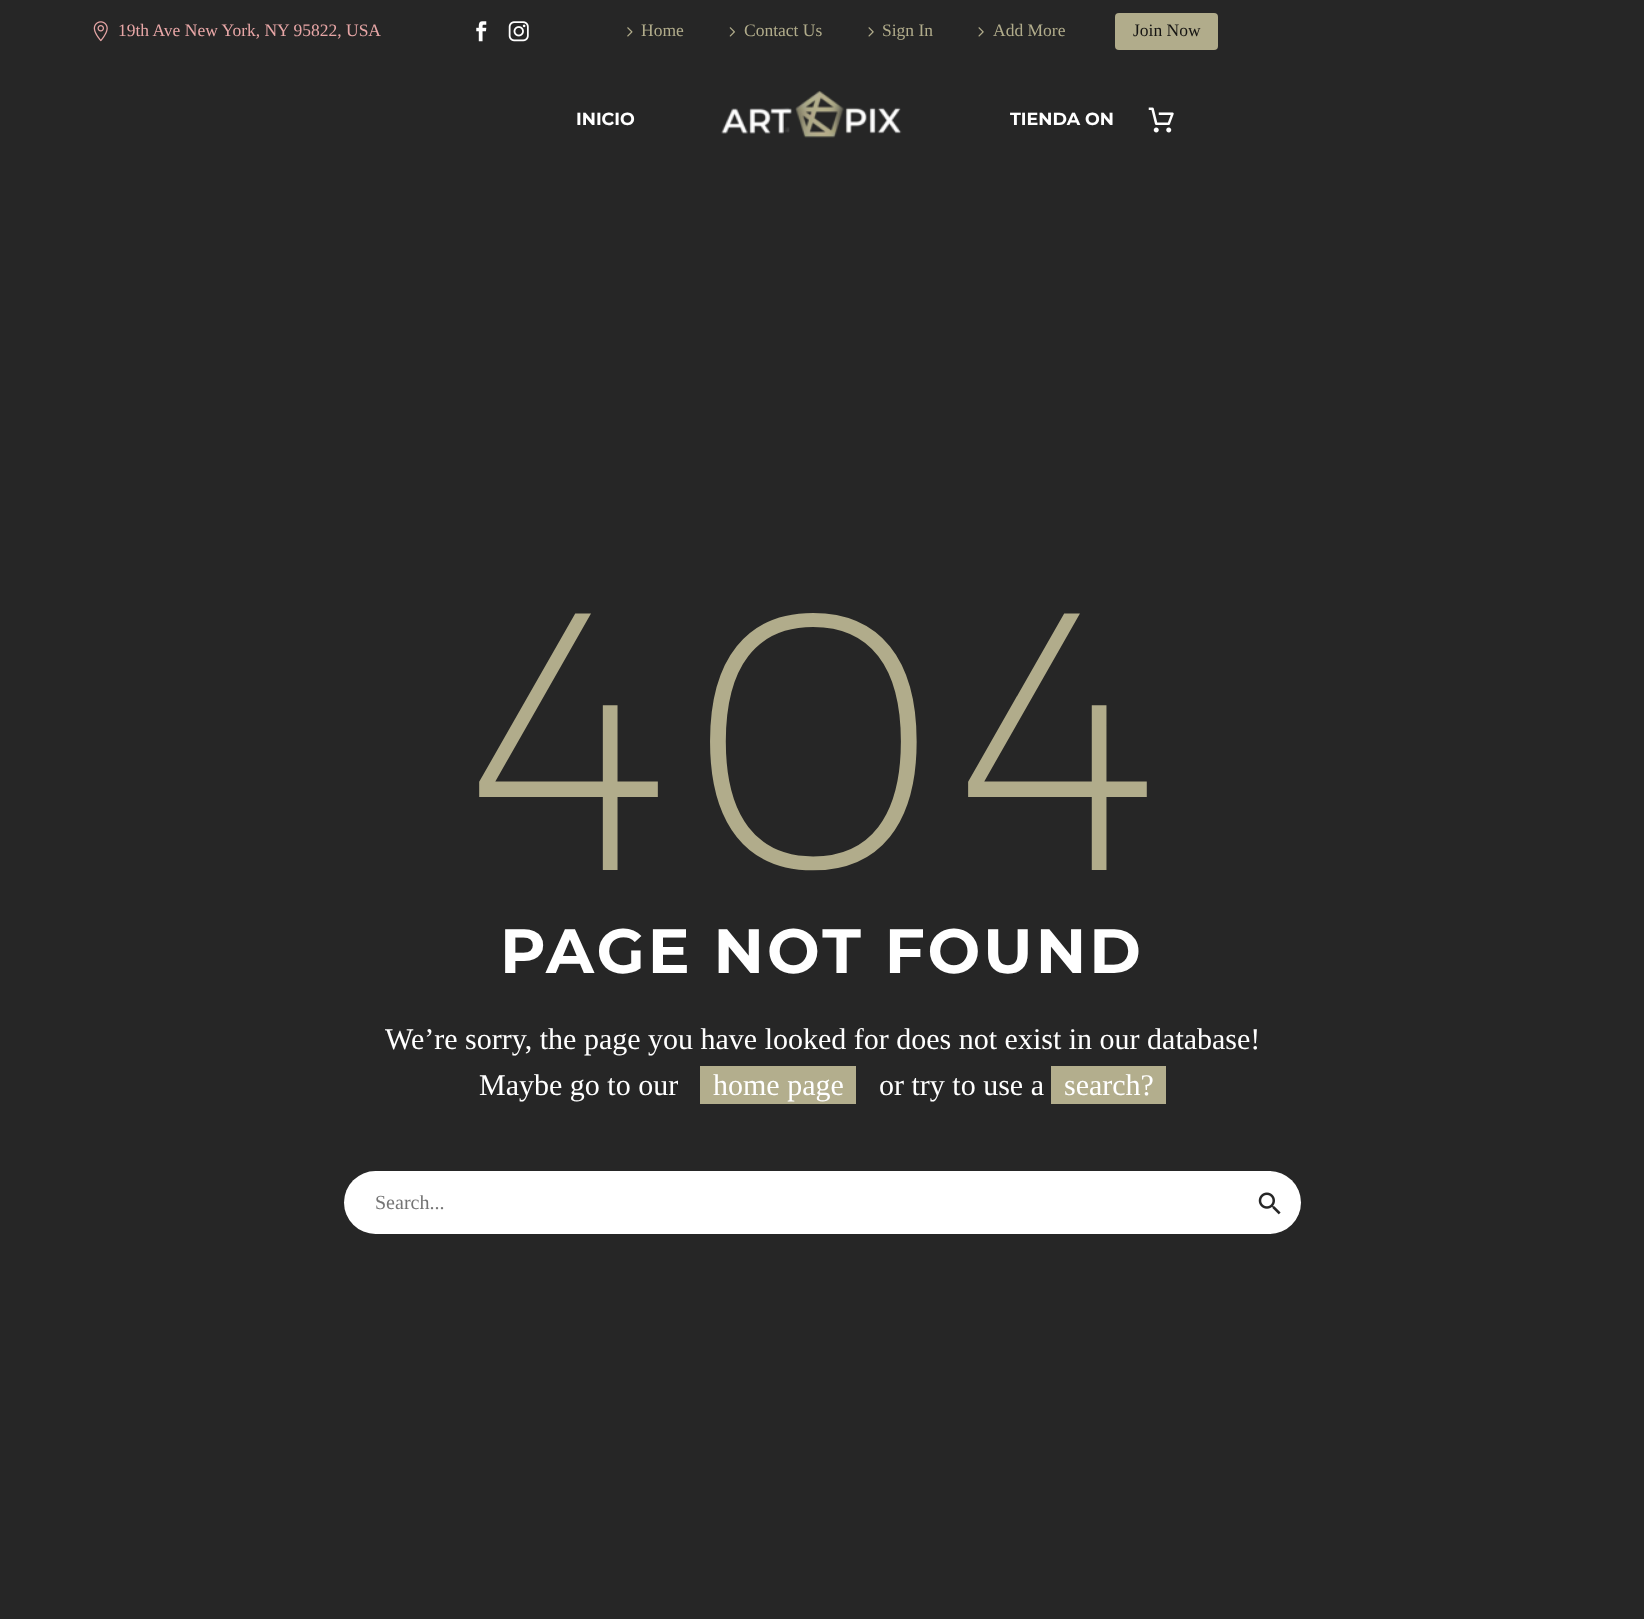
<svg xmlns="http://www.w3.org/2000/svg" width="1644" height="1619">
<style>
.a{font:17.5px Liberation Serif;fill:#e7a6a6}
.b{font:17.5px Liberation Serif;fill:#b1ac8b}
.c{font:17.5px Liberation Serif;fill:#161513}
.d{font:bold 17.5px Montserrat;fill:#fff}
.e{font:200 367px Montserrat;letter-spacing:18.5px;fill:#b1ac8b}
.f{font:bold 62.5px Montserrat;letter-spacing:3.1px;fill:#fff}
.g{font:30px Liberation Serif;fill:#fff}
.h{font:20px Liberation Serif;fill:#757575}
</style>
<rect width="100%" height="100%" fill="#262626"/>
<image href="1.png" x="93" y="21" width="15" height="21"/>
<image href="2.png" x="476" y="21" width="11" height="21"/>
<image href="3.png" x="508" y="21" width="21" height="21"/>
<image href="4.png" x="627" y="27" width="6" height="10"/>
<image href="5.png" x="729" y="27" width="6" height="10"/>
<image href="6.png" x="868" y="27" width="6" height="10"/>
<image href="6.png" x="978" y="27" width="6" height="10"/>
<rect fill="#b1ac8b" x="1115" y="13" width="103" height="37" rx="4"/>
<image href="7.png" x="721" y="90" width="181" height="48"/>
<image href="8.png" x="1148" y="107" width="26" height="26"/>
<path fill="#b3ae8d" d="M700 1066h156v38H700z"/>
<path fill="#b3ae8d" d="M1051 1066h115v38H1051z"/>
<rect fill="#fff" x="344" y="1171" width="957" height="63" rx="31.5"/>
<image href="9.png" x="1258" y="1192" width="23" height="23"/>
<text class="a" x="118" y="36">19th Ave New York, NY 95822, USA</text>
<text class="b" x="641" y="36">Home</text>
<text class="b" x="744" y="36">Contact Us</text>
<text class="b" x="882" y="36">Sign In</text>
<text class="b" x="993" y="36">Add More</text>
<text class="c" x="1133" y="36">Join Now</text>
<text class="d" x="576" y="125">INICIO</text>
<text class="d" x="1010" y="125">TIENDA ON</text>
<text class="e" x="467" y="870">404</text>
<text class="f" x="500" y="973">PAGE NOT FOUND</text>
<text class="g" x="385" y="1049">We’re sorry, the page you have looked for does not exist in our database!</text>
<text class="g" x="479" y="1095">Maybe go to our</text>
<text class="g" x="713" y="1095">home page</text>
<text class="g" x="879" y="1095">or try to use a</text>
<text class="g" x="1064" y="1095">search?</text>
<text class="h" x="375" y="1209">Search...</text>
</svg>
